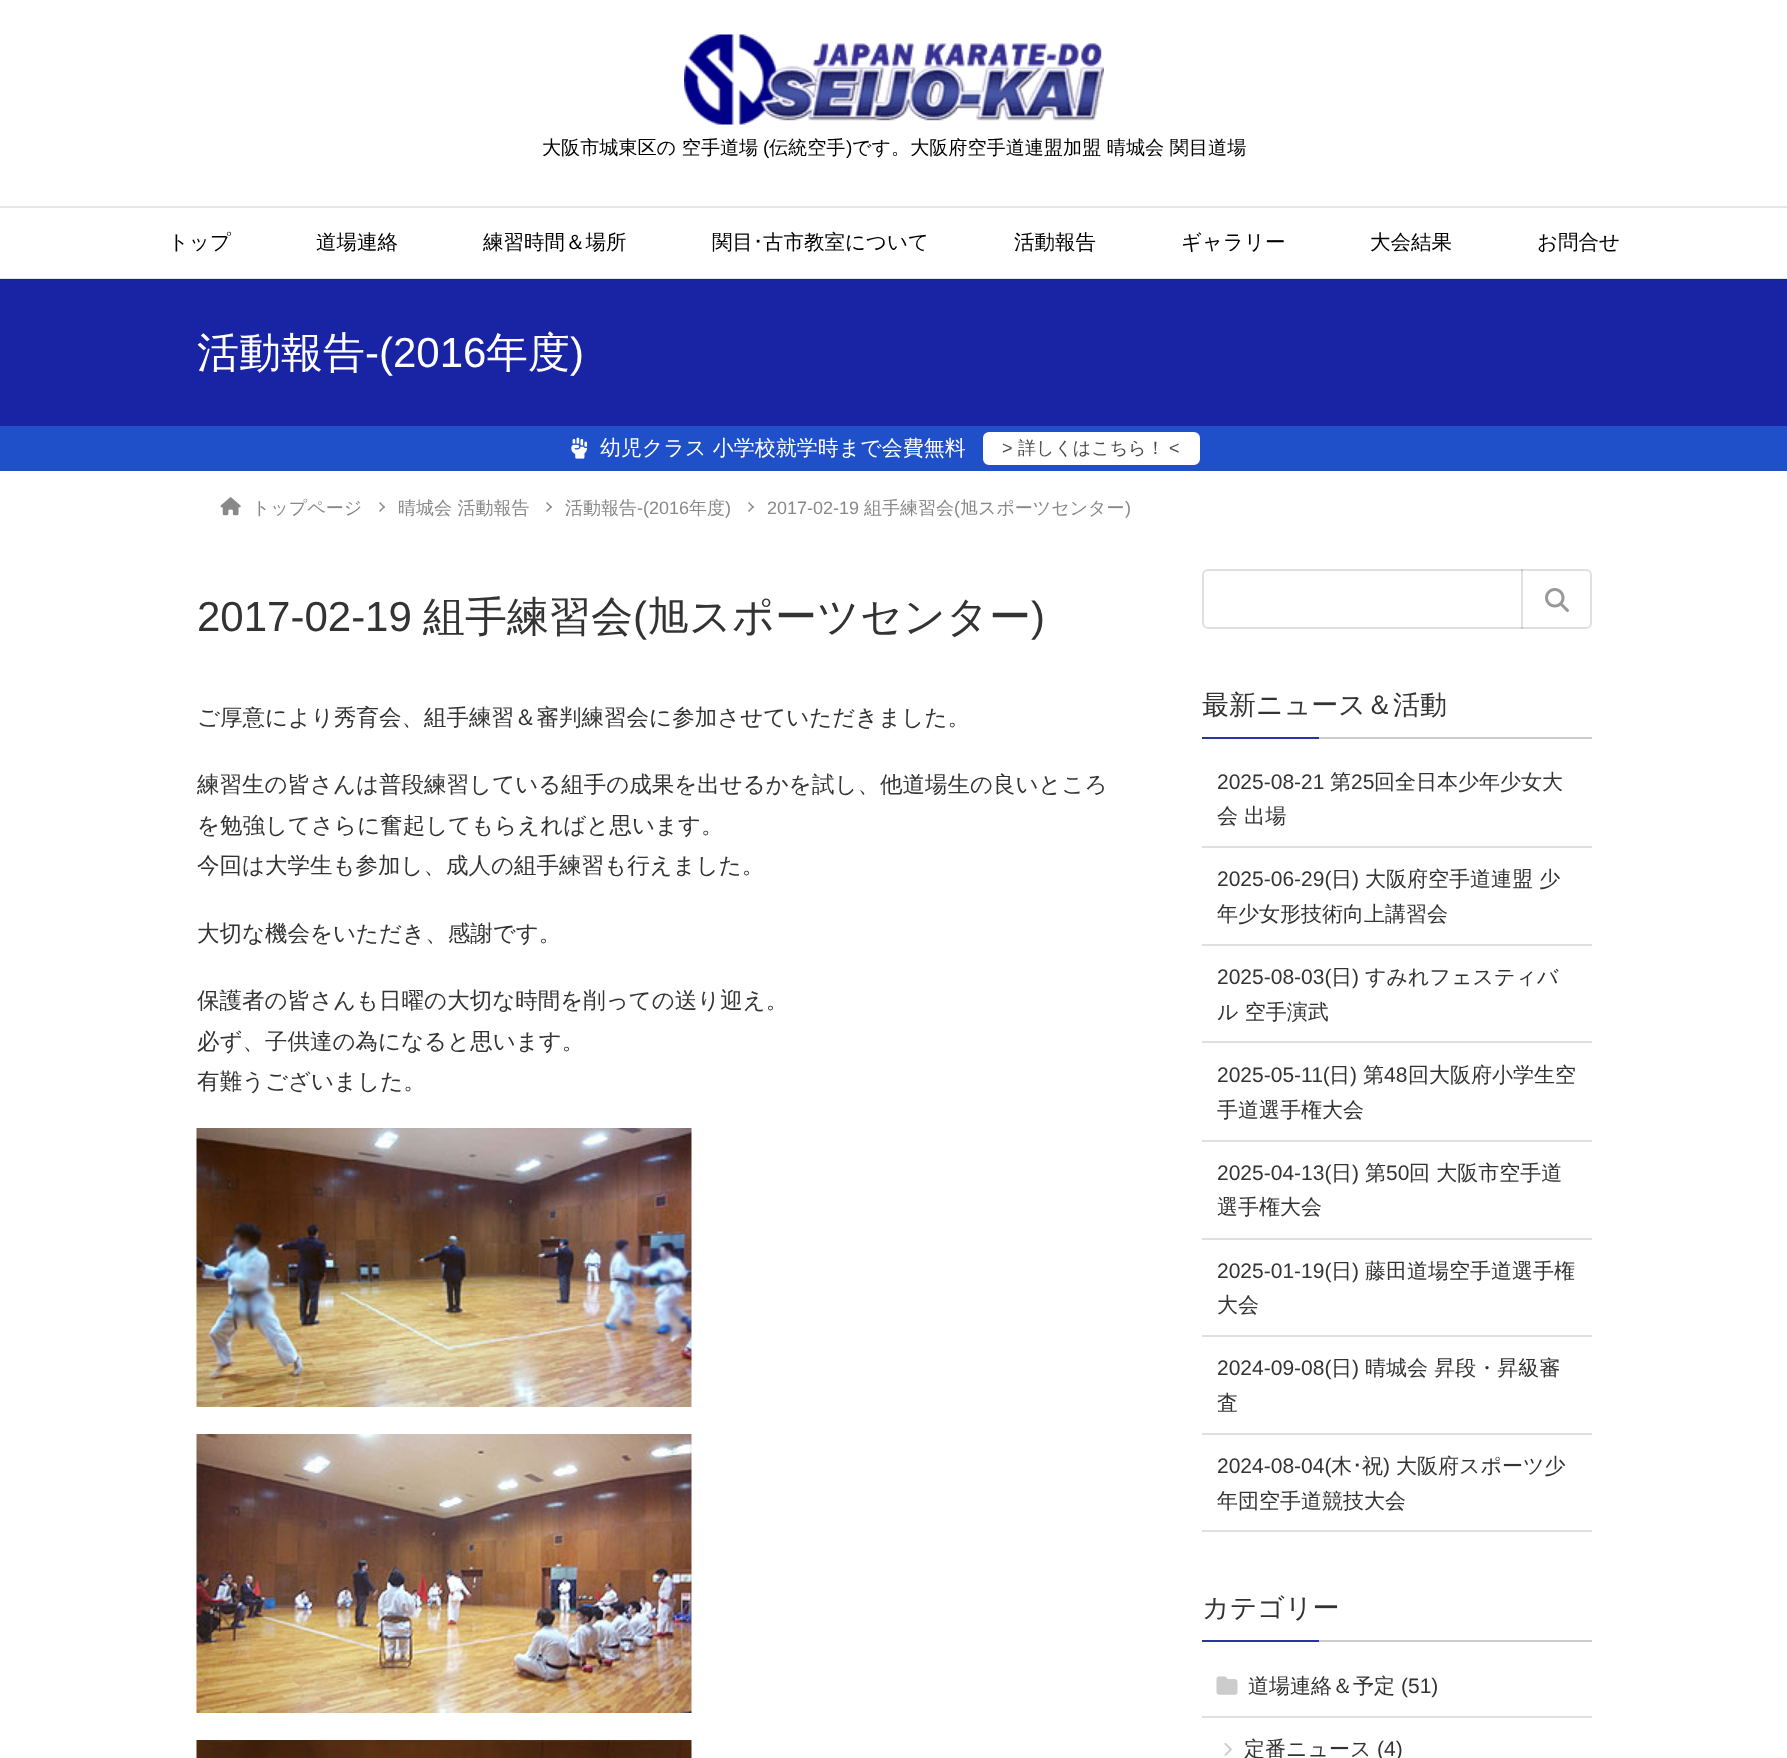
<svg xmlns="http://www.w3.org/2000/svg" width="1787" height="1758">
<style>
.a{font:500 19.1px WenQuanYi Zen Hei;fill:#000}
.b{font:19.1px Liberation Sans;fill:#000}
.c{font:500 20.5px WenQuanYi Zen Hei;fill:#000}
.d{font:20.5px IPAPGothic;fill:#000}
.e{font:500 42px WenQuanYi Zen Hei;fill:#fff}
.f{font:42px Liberation Sans;fill:#fff}
.g{font:500 21px WenQuanYi Zen Hei;fill:#fff}
.h{font:18px Liberation Sans;fill:#4c4c4c}
.i{font:500 18px WenQuanYi Zen Hei;fill:#4c4c4c}
.j{font:500 18px WenQuanYi Zen Hei;fill:#888}
.k{font:18px Liberation Sans;fill:#888}
.l{font:42px Liberation Sans;fill:#333}
.m{font:500 42px WenQuanYi Zen Hei;fill:#333}
.n{font:500 22.5px WenQuanYi Zen Hei;fill:#333}
.o{font:500 27px WenQuanYi Zen Hei;fill:#333}
.p{font:21px Liberation Sans;fill:#333}
.q{font:500 21px WenQuanYi Zen Hei;fill:#333}
.r{font:21px IPAPGothic;fill:#333}
</style>
<rect width="100%" height="100%" fill="#fff"/>
<image href="1.png" x="684" y="34" width="420" height="91"/>
<path fill="#e6e6e6" d="M0 206h1787v2H0z"/>
<path fill="#1824a3" d="M0 279h1787v147H0z"/>
<path fill="#0000001a" d="M0 278h1787v2H0z"/>
<path fill="#2050c9" d="M0 426h1787v45H0z"/>
<image href="2.png" x="571" y="437" width="17" height="22"/>
<rect fill="#fff" stroke="#fff" stroke-width="2" x="984" y="433" width="215" height="31" rx="5"/>
<image href="3.png" x="220" y="497" width="21" height="19"/>
<path fill="#888" d="M380 502l5 5l-1 1l-5-5z"/>
<path fill="#888" d="M384 506l1 1l-5 5l-1-1z"/>
<path fill="#888" d="M547 502l5 5l-1 1l-5-5z"/>
<path fill="#888" d="M551 506l1 1l-5 5l-1-1z"/>
<path fill="#888" d="M749 502l5 5l-1 1l-5-5z"/>
<path fill="#888" d="M753 506l1 1l-5 5l-1-1z"/>
<image href="4.png" x="196" y="1128" width="496" height="279"/>
<image href="5.png" x="196" y="1434" width="496" height="279"/>
<image href="6.png" x="196" y="1740" width="496" height="18"/>
<rect fill="none" stroke="#e0e0e0" stroke-width="2" x="1203" y="570" width="388" height="58" rx="5"/>
<path fill="#0000001f" d="M1521 569h2v60H1521z"/>
<image href="7.png" x="1545" y="588" width="24" height="24"/>
<path fill="#ccc" d="M1319 737h273v2H1319z"/>
<path fill="#2a34a3" d="M1202 737h117v2H1202z"/>
<path fill="#e0e0e0" d="M1202 846h390v2H1202z"/>
<path fill="#e0e0e0" d="M1202 944h390v2H1202z"/>
<path fill="#e0e0e0" d="M1202 1041h390v2H1202z"/>
<path fill="#e0e0e0" d="M1202 1140h390v2H1202z"/>
<path fill="#e0e0e0" d="M1202 1238h390v2H1202z"/>
<path fill="#e0e0e0" d="M1202 1335h390v2H1202z"/>
<path fill="#e0e0e0" d="M1202 1433h390v2H1202z"/>
<path fill="#e0e0e0" d="M1202 1530h390v2H1202z"/>
<path fill="#ccc" d="M1319 1640h273v2H1319z"/>
<path fill="#2a34a3" d="M1202 1640h117v2H1202z"/>
<path fill="#e0e0e0" d="M1202 1716h390v2H1202z"/>
<image href="8.png" x="1216" y="1676" width="22" height="19"/>
<image href="9.png" x="1224" y="1743" width="8" height="13"/>
<text class="a" x="542" y="154">大阪市城東区の 空手道場</text>
<text class="b" x="763" y="154">(</text>
<text class="a" x="769" y="154">伝統空手</text>
<text class="b" x="846" y="154">)</text>
<text class="a" x="852" y="154">です。大阪府空手道連盟加盟 晴城会 関目道場</text>
<text class="c" x="168" y="249">トップ</text>
<text class="c" x="316" y="249">道場連絡</text>
<text class="c" x="483" y="249">練習時間＆場所</text>
<text class="c" x="712" y="249">関目</text>
<text class="d" x="753" y="249">･</text>
<text class="c" x="763" y="249">古市教室について</text>
<text class="c" x="1014" y="249">活動報告</text>
<text class="c" x="1181" y="249">ギャラリー</text>
<text class="c" x="1370" y="249">大会結果</text>
<text class="c" x="1537" y="249">お問合せ</text>
<text class="e" x="197" y="367">活動報告</text>
<text class="f" x="365" y="367">-(2016</text>
<text class="e" x="486" y="367">年度</text>
<text class="f" x="570" y="367">)</text>
<text class="g" x="600" y="455">幼児クラス 小学校就学時まで会費無料</text>
<text class="h" x="1002" y="454">&gt;</text>
<text class="i" x="1018" y="454">詳しくはこちら！</text>
<text class="h" x="1169" y="454">&lt;</text>
<text class="j" x="252" y="514">トップページ</text>
<text class="j" x="398" y="514">晴城会 活動報告</text>
<text class="j" x="565" y="514">活動報告</text>
<text class="k" x="637" y="514">-(2016</text>
<text class="j" x="689" y="514">年度</text>
<text class="k" x="725" y="514">)</text>
<text class="k" x="767" y="514">2017-02-19</text>
<text class="j" x="864" y="514">組手練習会</text>
<text class="k" x="954" y="514">(</text>
<text class="j" x="960" y="514">旭スポーツセンター</text>
<text class="k" x="1125" y="514">)</text>
<text class="l" x="197" y="631">2017-02-19</text>
<text class="m" x="423" y="631">組手練習会</text>
<text class="l" x="633" y="631">(</text>
<text class="m" x="647" y="631">旭スポーツセンター</text>
<text class="l" x="1031" y="631">)</text>
<text class="n" x="197" y="725">ご厚意により秀育会、組手練習＆審判練習会に参加させていただきました。</text>
<text class="n" x="197" y="792">練習生の皆さんは普段練習している組手の成果を出せるかを試し、他道場生の良いところ</text>
<text class="n" x="197" y="833">を勉強してさらに奮起してもらえればと思います。</text>
<text class="n" x="197" y="873">今回は大学生も参加し、成人の組手練習も行えました。</text>
<text class="n" x="197" y="941">大切な機会をいただき、感謝です。</text>
<text class="n" x="197" y="1008">保護者の皆さんも日曜の大切な時間を削っての送り迎え。</text>
<text class="n" x="197" y="1049">必ず、子供達の為になると思います。</text>
<text class="n" x="197" y="1089">有難うございました。</text>
<text class="o" x="1202" y="714">最新ニュース＆活動</text>
<text class="p" x="1217" y="789">2025-08-21</text>
<text class="q" x="1330" y="789">第</text>
<text class="p" x="1351" y="789">25</text>
<text class="q" x="1374" y="789">回全日本少年少女大</text>
<text class="q" x="1217" y="823">会 出場</text>
<text class="p" x="1217" y="886">2025-06-29(</text>
<text class="q" x="1331" y="886">日</text>
<text class="p" x="1352" y="886">)</text>
<text class="q" x="1365" y="886">大阪府空手道連盟 少</text>
<text class="q" x="1217" y="921">年少女形技術向上講習会</text>
<text class="p" x="1217" y="984">2025-08-03(</text>
<text class="q" x="1331" y="984">日</text>
<text class="p" x="1352" y="984">)</text>
<text class="q" x="1365" y="984">すみれフェスティバ</text>
<text class="q" x="1217" y="1019">ル 空手演武</text>
<text class="p" x="1217" y="1082">2025-05-11(</text>
<text class="q" x="1329" y="1082">日</text>
<text class="p" x="1350" y="1082">)</text>
<text class="q" x="1363" y="1082">第</text>
<text class="p" x="1384" y="1082">48</text>
<text class="q" x="1408" y="1082">回大阪府小学生空</text>
<text class="q" x="1217" y="1117">手道選手権大会</text>
<text class="p" x="1217" y="1180">2025-04-13(</text>
<text class="q" x="1331" y="1180">日</text>
<text class="p" x="1352" y="1180">)</text>
<text class="q" x="1365" y="1180">第</text>
<text class="p" x="1386" y="1180">50</text>
<text class="q" x="1409" y="1180">回 大阪市空手道</text>
<text class="q" x="1217" y="1214">選手権大会</text>
<text class="p" x="1217" y="1278">2025-01-19(</text>
<text class="q" x="1331" y="1278">日</text>
<text class="p" x="1352" y="1278">)</text>
<text class="q" x="1365" y="1278">藤田道場空手道選手権</text>
<text class="q" x="1217" y="1312">大会</text>
<text class="p" x="1217" y="1375">2024-09-08(</text>
<text class="q" x="1331" y="1375">日</text>
<text class="p" x="1352" y="1375">)</text>
<text class="q" x="1365" y="1375">晴城会 昇段・昇級審</text>
<text class="q" x="1217" y="1410">査</text>
<text class="p" x="1217" y="1473">2024-08-04(</text>
<text class="q" x="1331" y="1473">木</text>
<text class="r" x="1352" y="1473">･</text>
<text class="q" x="1362" y="1473">祝</text>
<text class="p" x="1383" y="1473">)</text>
<text class="q" x="1396" y="1473">大阪府スポーツ少</text>
<text class="q" x="1217" y="1508">年団空手道競技大会</text>
<text class="o" x="1202" y="1617">カテゴリー</text>
<text class="q" x="1248" y="1693">道場連絡＆予定</text>
<text class="p" x="1401" y="1693">(51)</text>
<text class="q" x="1244" y="1756">定番ニュース</text>
<text class="p" x="1377" y="1756">(4)</text>
</svg>
